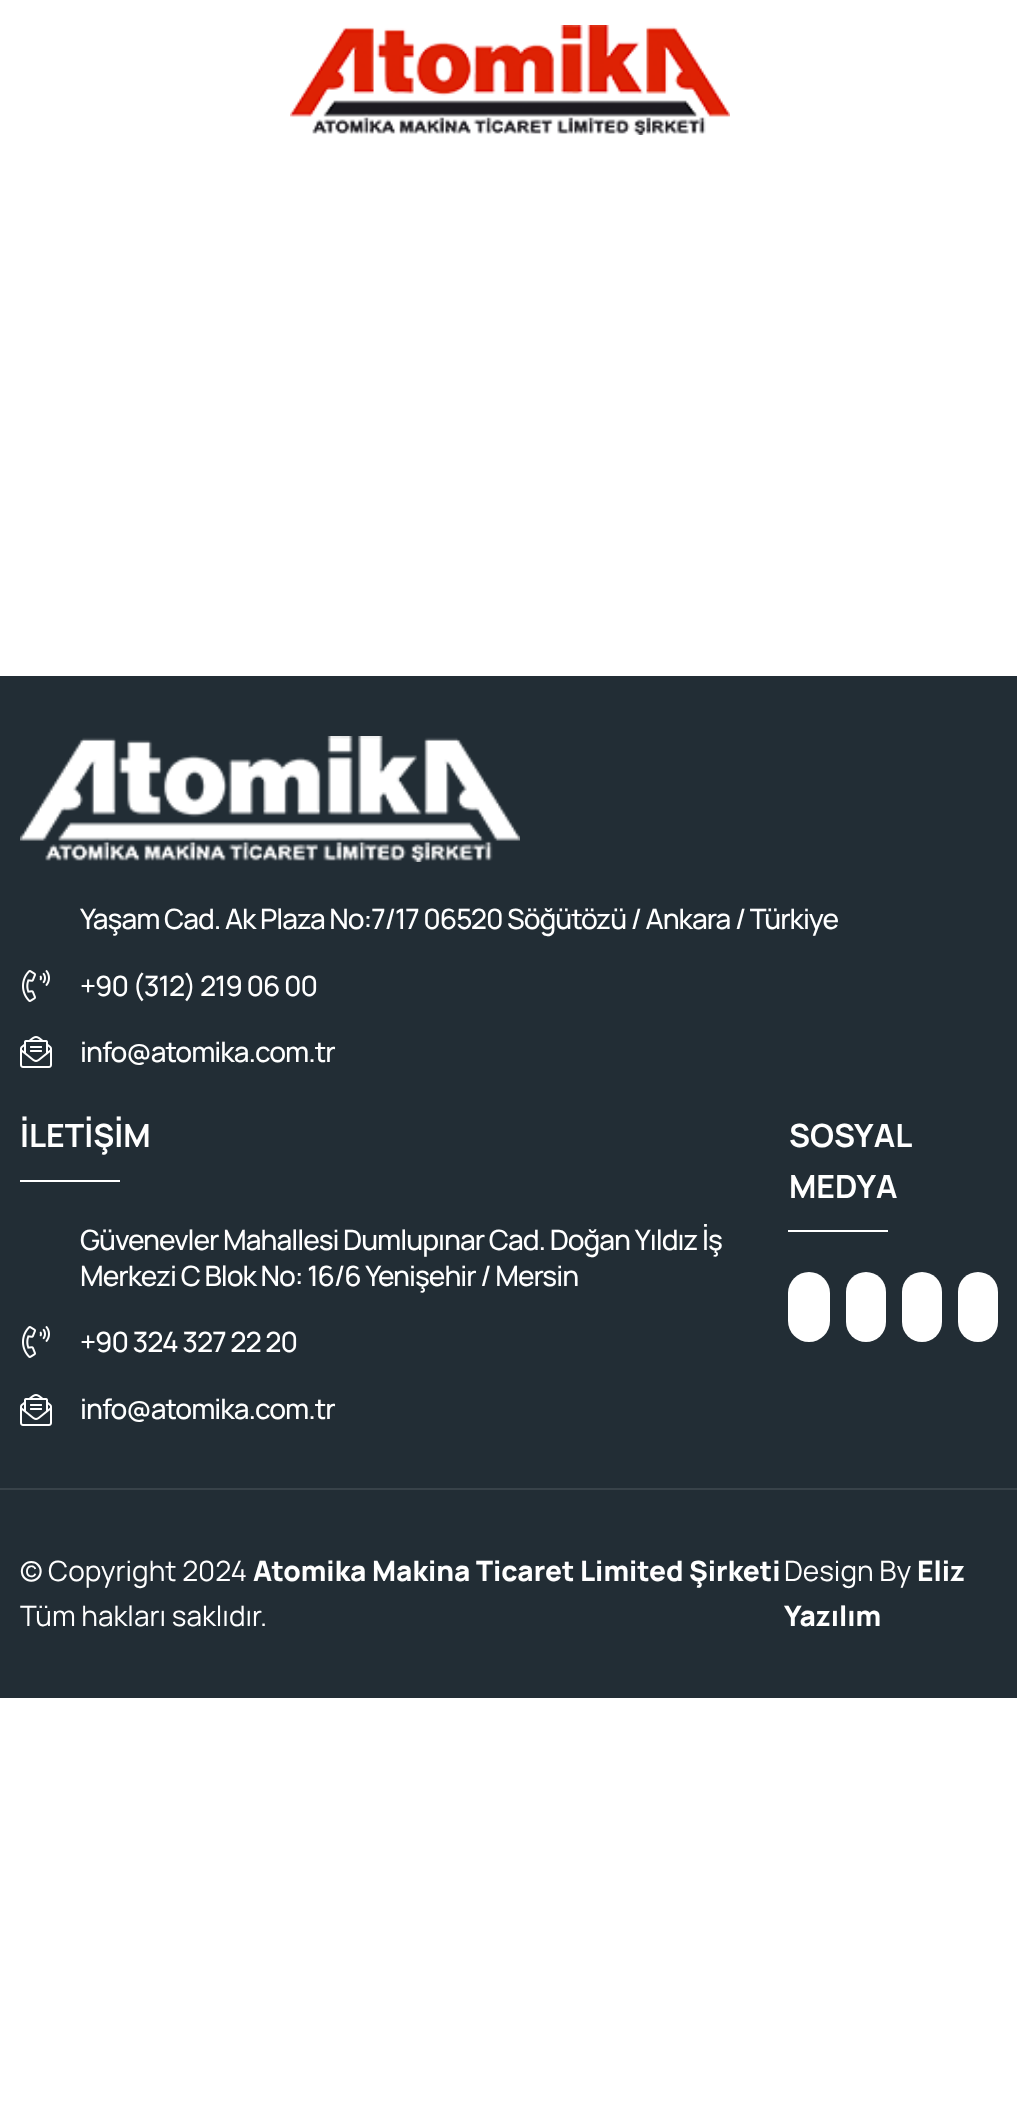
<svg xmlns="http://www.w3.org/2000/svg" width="1017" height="2111">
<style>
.a{font:500 28px Manrope;letter-spacing:-1px;fill:#fff}
.b{font:bold 32px Manrope;fill:#fff}
.c{font:28px Manrope;fill:#fff}
.d{font:800 28px Manrope;fill:#fff}
</style>
<rect width="100%" height="100%" fill="#fff"/>
<image href="1.png" x="290" y="25" width="440" height="110"/>
<path fill="#222d35" d="M0 676h1017v1022H0z"/>
<image href="2.png" x="20" y="736" width="500" height="126"/>
<image href="3.png" x="22" y="970" width="28" height="32"/>
<image href="4.png" x="20" y="1036" width="32" height="32"/>
<path fill="#fff" d="M20 1180h100v2H20z"/>
<image href="3.png" x="22" y="1326" width="28" height="32"/>
<image href="4.png" x="20" y="1394" width="32" height="32"/>
<path fill="#fff" d="M788 1230h100v2H788z"/>
<rect fill="#fff" x="788" y="1272" width="42" height="70" rx="21"/>
<rect fill="#fff" x="846" y="1272" width="40" height="70" rx="20"/>
<rect fill="#fff" x="902" y="1272" width="40" height="70" rx="20"/>
<rect fill="#fff" x="958" y="1272" width="40" height="70" rx="20"/>
<path fill="#384249" d="M0 1488h1017v2H0z"/>
<text class="a" x="80" y="929">Yaşam Cad. Ak Plaza No:7/17 06520 Söğütözü / Ankara / Türkiye</text>
<text class="a" x="80" y="996">+90 (312) 219 06 00</text>
<text class="a" x="80" y="1062">info@atomika.com.tr</text>
<text class="b" x="20" y="1147">İLETİŞİM</text>
<text class="a" x="80" y="1250">Güvenevler Mahallesi Dumlupınar Cad. Doğan Yıldız İş</text>
<text class="a" x="80" y="1286">Merkezi C Blok No: 16/6 Yenişehir / Mersin</text>
<text class="a" x="80" y="1352">+90 324 327 22 20</text>
<text class="a" x="80" y="1419">info@atomika.com.tr</text>
<text class="b" x="789" y="1147">SOSYAL</text>
<text class="b" x="789" y="1198">MEDYA</text>
<text class="c" x="20" y="1581">© Copyright 2024</text>
<text class="d" x="253" y="1581">Atomika Makina Ticaret Limited Şirketi</text>
<text class="c" x="20" y="1626">Tüm hakları saklıdır.</text>
<text class="c" x="784" y="1581">Design By</text>
<text class="d" x="917" y="1581">Eliz</text>
<text class="d" x="784" y="1626">Yazılım</text>
</svg>
